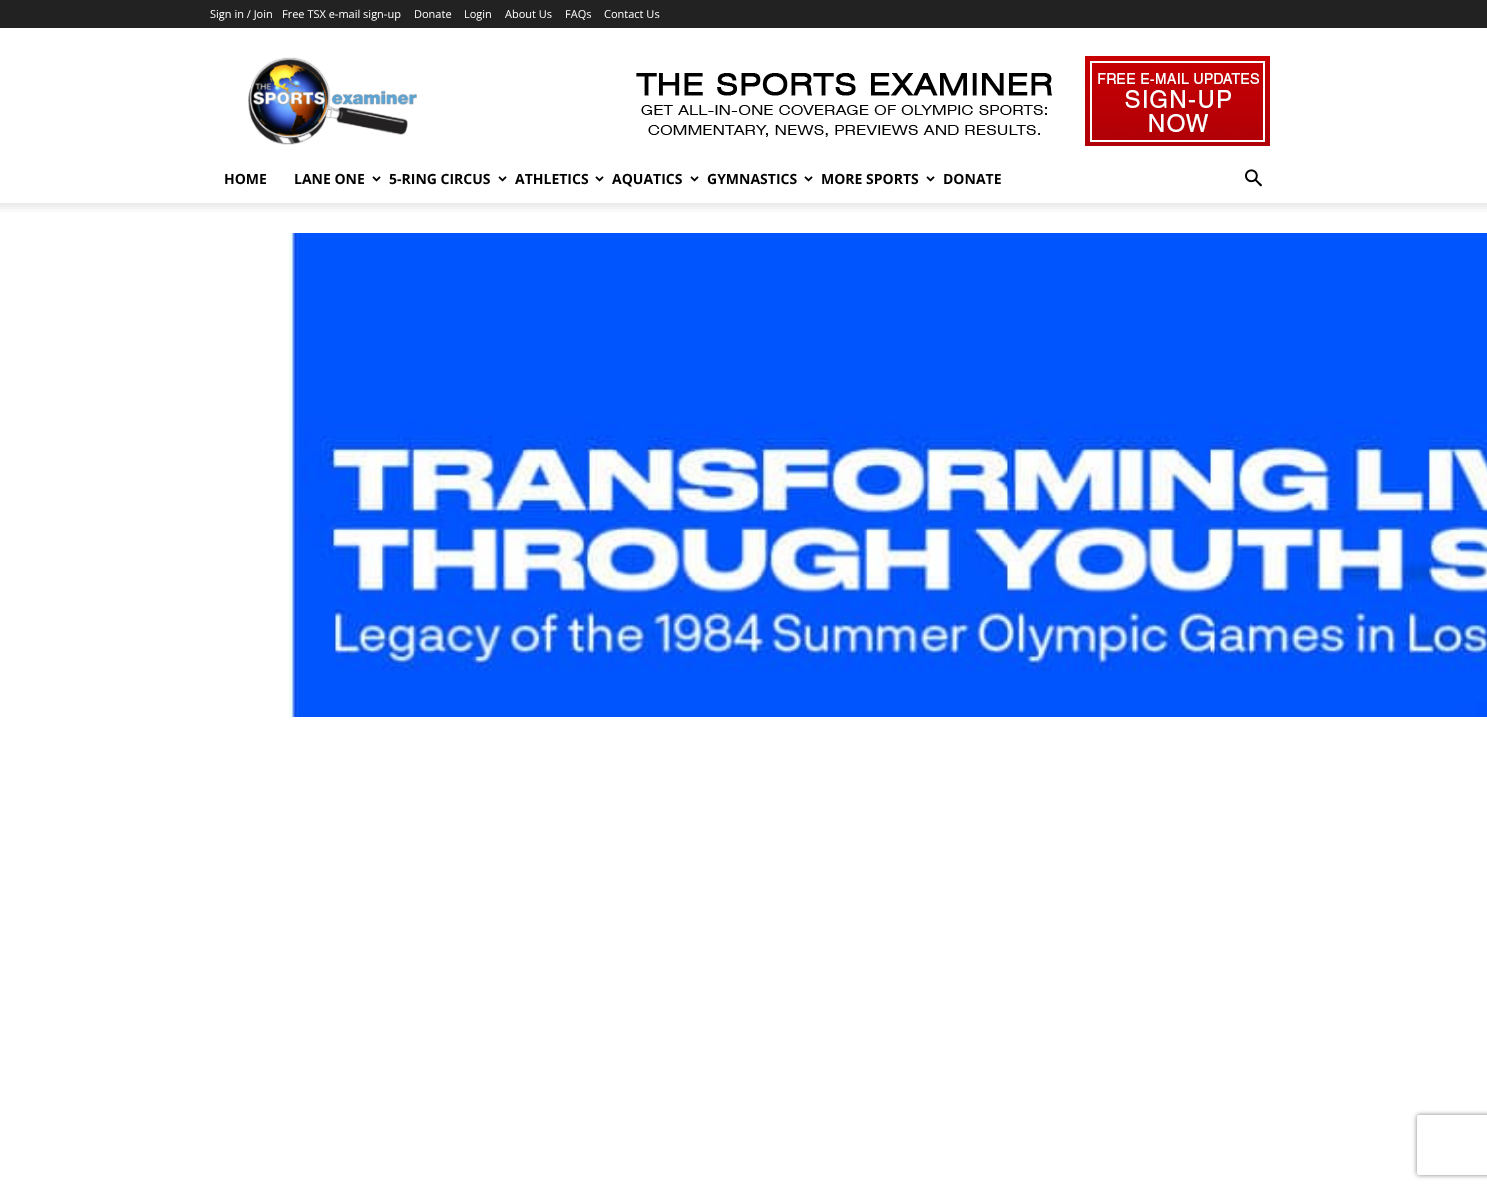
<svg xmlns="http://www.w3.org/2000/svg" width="1487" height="1189">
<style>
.a{font:11px Open Sans;fill:#fff}
.b{font:bold 14px Open Sans;fill:#000}
</style>
<defs>
<clipPath id="clip1"><path d="M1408 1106h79v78h-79zm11 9h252c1 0 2 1 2 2v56c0 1-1 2-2 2h-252c-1 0-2-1-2-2v-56c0-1 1-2 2-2z" clip-rule="evenodd"/></clipPath>
</defs>
<rect width="100%" height="100%" fill="#fff"/>
<path fill="#222" d="M0 0h1487v28H0z"/>
<image href="1.png" x="248" y="57" width="169" height="88"/>
<image href="2.png" x="636" y="56" width="634" height="90"/>
<image href="3.png" x="372" y="176" width="9" height="6"/>
<image href="3.png" x="498" y="176" width="9" height="6"/>
<image href="3.png" x="595" y="176" width="9" height="6"/>
<image href="3.png" x="690" y="176" width="9" height="6"/>
<image href="3.png" x="804" y="176" width="9" height="6"/>
<image href="3.png" x="926" y="176" width="9" height="6"/>
<image href="4.png" x="1245" y="169" width="17" height="18"/>
<image href="5.png" x="0" y="203" width="1487" height="9"/>
<image href="6.png" x="289" y="233" width="1198" height="484"/>
<g clip-path="url(#clip1)">
<rect fill="#808080" filter="blur(2.5px)" x="1417" y="1115" width="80" height="60" rx="2"/>
</g>
<text class="a" x="210" y="18">Sign in / Join</text>
<text class="a" x="282" y="18">Free TSX e-mail sign-up</text>
<text class="a" x="414" y="18">Donate</text>
<text class="a" x="464" y="18">Login</text>
<text class="a" x="505" y="18">About Us</text>
<text class="a" x="565" y="18">FAQs</text>
<text class="a" x="604" y="18">Contact Us</text>
<text class="b" x="224" y="184">HOME</text>
<text class="b" x="294" y="184">LANE ONE</text>
<text class="b" x="389" y="184">5-RING CIRCUS</text>
<text class="b" x="515" y="184">ATHLETICS</text>
<text class="b" x="612" y="184">AQUATICS</text>
<text class="b" x="707" y="184">GYMNASTICS</text>
<text class="b" x="821" y="184">MORE SPORTS</text>
<text class="b" x="943" y="184">DONATE</text>
</svg>
